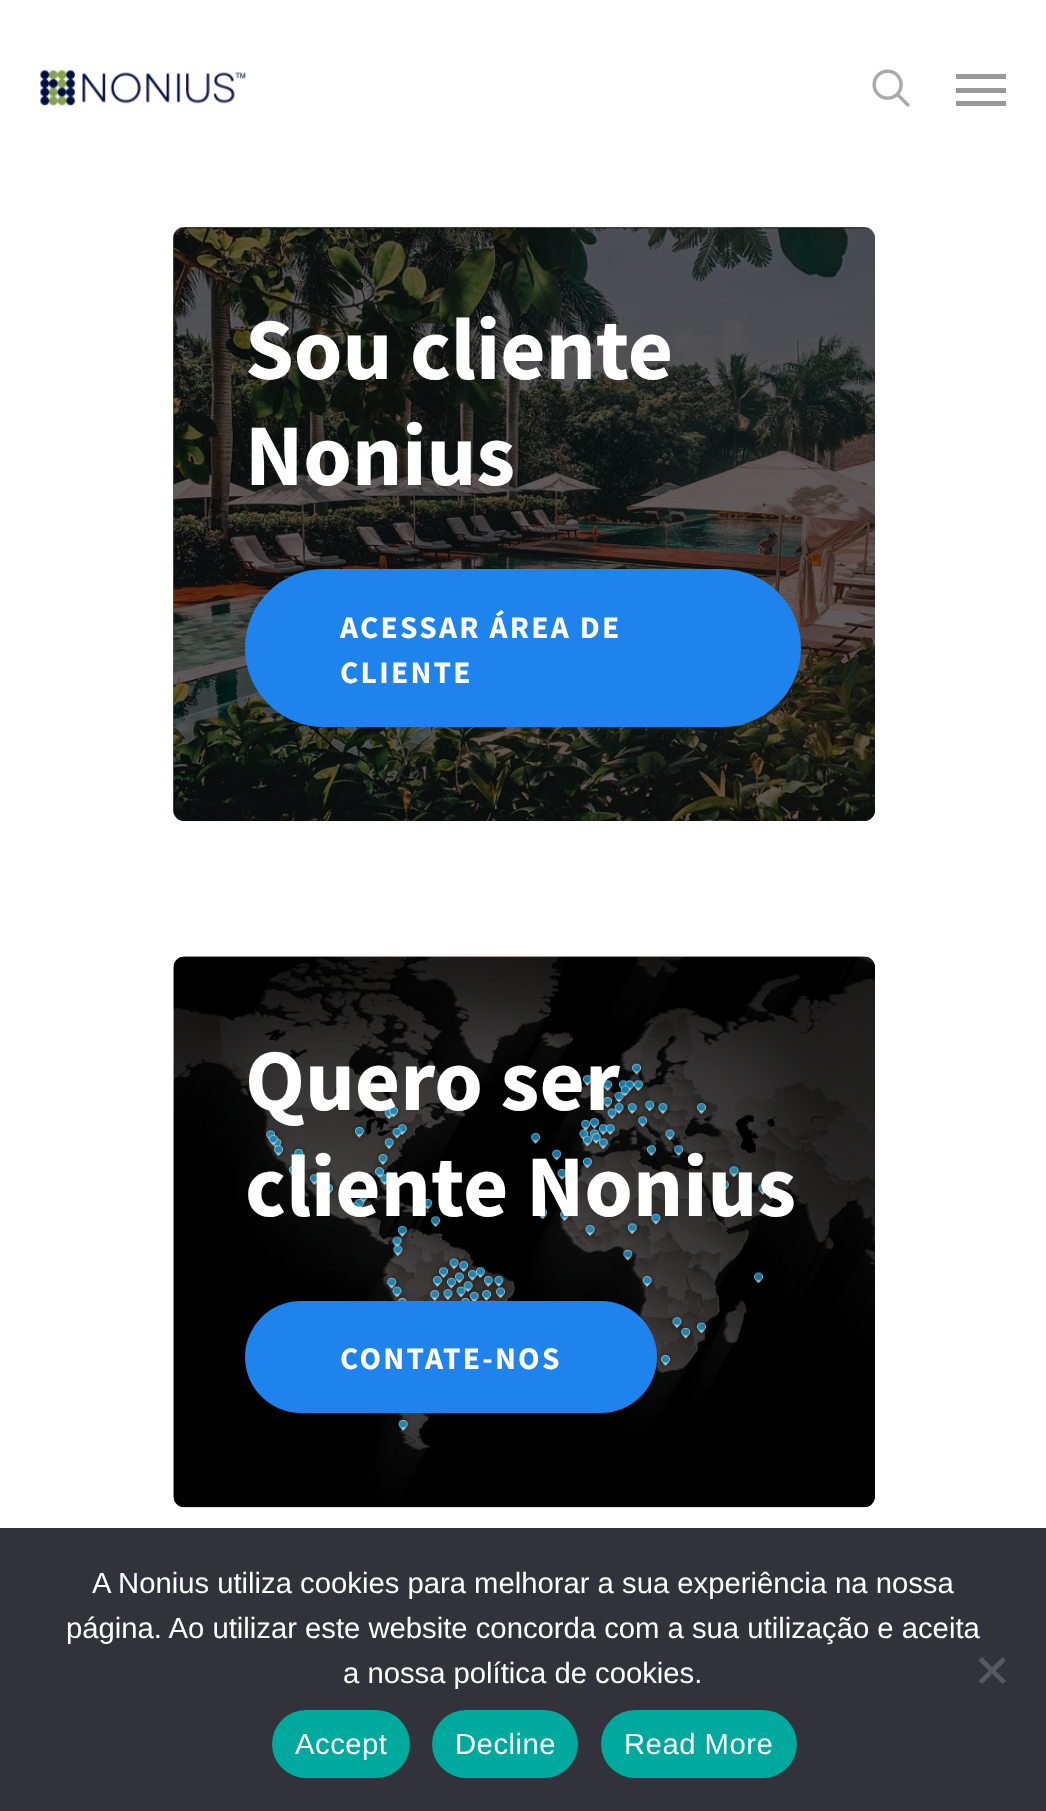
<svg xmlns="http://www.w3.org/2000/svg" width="1046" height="1811">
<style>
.a{font:bold 87.75px Source Sans Pro;fill:#fff}
.b{font:bold 31.5px Source Sans Pro;letter-spacing:2.25px;fill:#fff}
.c{font:29.25px Liberation Sans;fill:#fff}
.d{font:29.25px Liberation Sans;letter-spacing:0.5px;fill:#fff}
</style>
<rect width="100%" height="100%" fill="#fff"/>
<image href="1.png" x="40" y="70" width="206" height="36"/>
<image href="2.png" x="872" y="69" width="38" height="38"/>
<path fill="#999" d="M956 74h50v5H956z"/>
<path fill="#999" d="M956 101h50v5H956z"/>
<path fill="#999" d="M956 88h50v5H956z"/>
<image href="3.png" x="173" y="227" width="702" height="594"/>
<rect fill="#0000009e" x="173" y="227" width="702" height="594" rx="11"/>
<rect fill="#1e83ec" x="245" y="569" width="556" height="158" rx="79"/>
<image href="4.png" x="173" y="956" width="702" height="552"/>
<rect fill="#1e83ec" x="245" y="1301" width="412" height="112" rx="56"/>
<path fill="#32323a" d="M0 1528h1046v283H0z"/>
<path fill="#59595d" d="M1002.5 1657l3.5 3.5l-24 23.5l-3.5-3z"/>
<path fill="#59595d" d="M978.5 1660.5l3.5-3.5l24 24l-3.5 3z"/>
<rect fill="#00a99d" x="272" y="1710" width="138" height="68" rx="34"/>
<rect fill="#00a99d" x="432" y="1710" width="146" height="68" rx="34"/>
<rect fill="#00a99d" x="601" y="1710" width="196" height="68" rx="34"/>
<text class="a" x="245" y="379">Sou cliente</text>
<text class="a" x="245" y="485">Nonius</text>
<text class="b" x="340" y="638">ACESSAR ÁREA DE</text>
<text class="b" x="340" y="683">CLIENTE</text>
<text class="a" x="245" y="1110">Quero ser</text>
<text class="a" x="245" y="1216">cliente Nonius</text>
<text class="b" x="340" y="1369">CONTATE-NOS</text>
<text class="c" x="92" y="1593">A Nonius utiliza cookies para melhorar a sua experiência na nossa</text>
<text class="c" x="66" y="1638">página. Ao utilizar este website concorda com a sua utilização e aceita</text>
<text class="c" x="343" y="1683">a nossa política de cookies.</text>
<text class="d" x="295" y="1754">Accept</text>
<text class="d" x="455" y="1754">Decline</text>
<text class="d" x="624" y="1754">Read More</text>
</svg>
